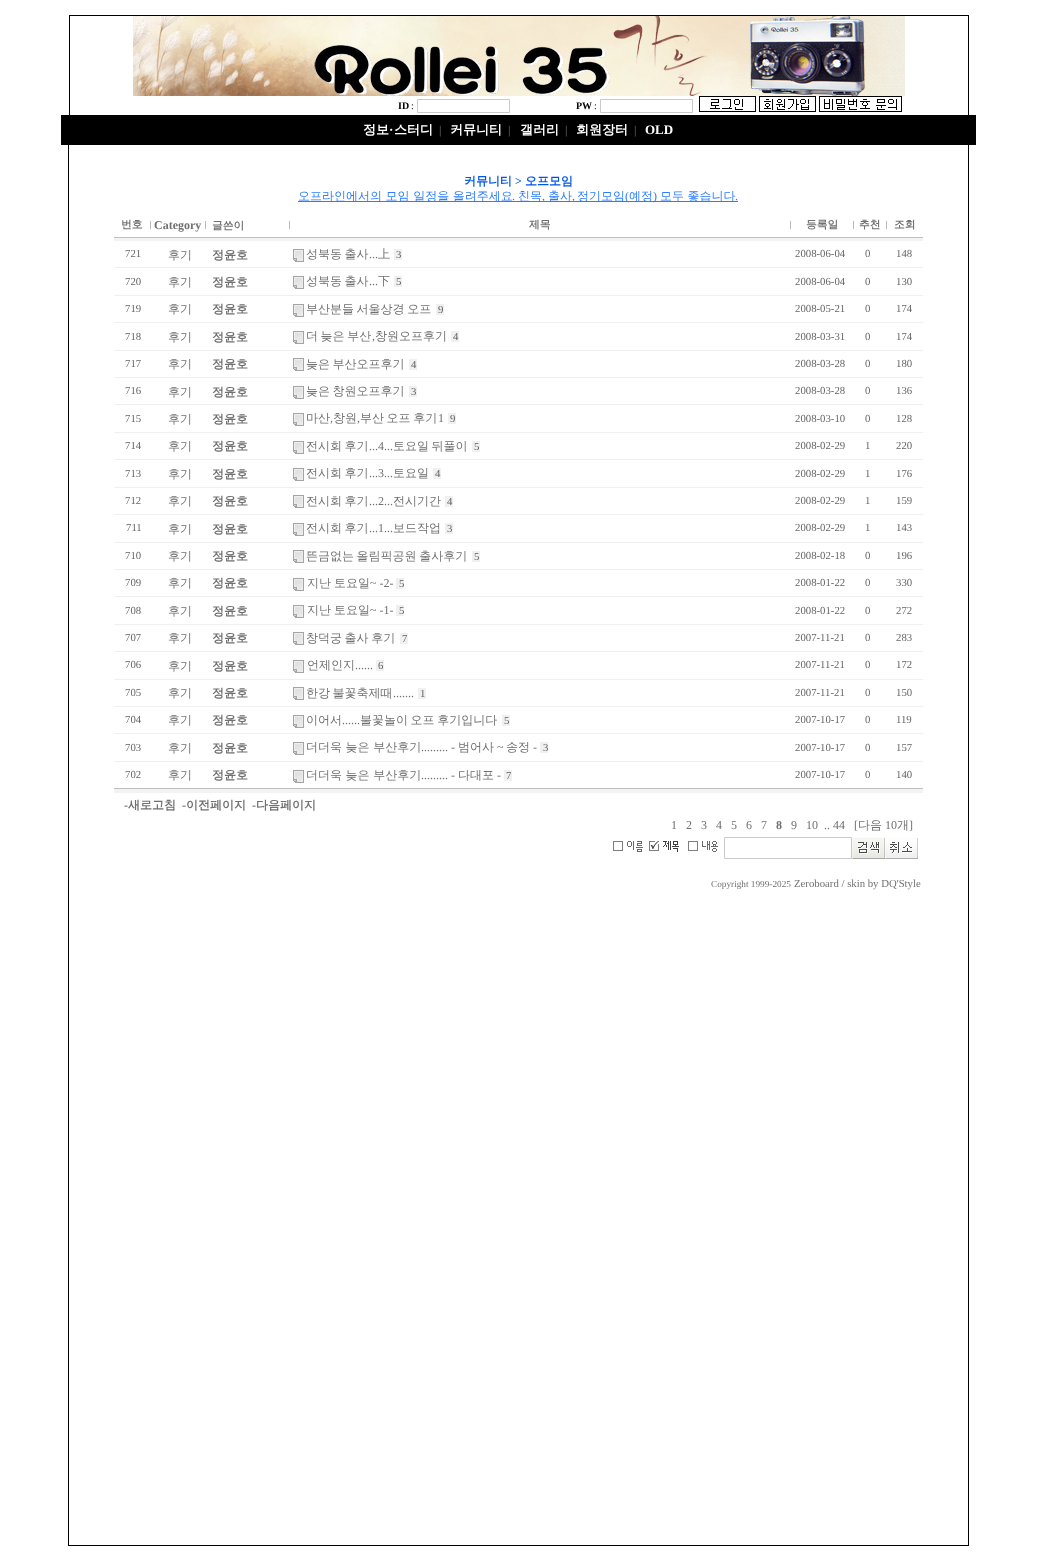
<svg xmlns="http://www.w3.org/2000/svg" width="1037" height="1562">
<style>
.a{font:bold 10px Liberation Serif;fill:#000}
.b{font:10px Liberation Serif;fill:#000}
.c{font:bold 13px WenQuanYi Zen Hei;fill:#fff}
.d{font:bold 13px Liberation Serif;fill:#fff}
.e{font:12px Liberation Serif;fill:#707070}
.f{font:bold 12px WenQuanYi Zen Hei;fill:#0056e6}
.g{font:bold 12px Liberation Serif;fill:#0056e6}
.h{font:500 12px WenQuanYi Zen Hei;fill:#2d7cff}
.i{font:12px Liberation Serif;fill:#2d7cff}
.j{font:bold 10.75px WenQuanYi Zen Hei;fill:#707070}
.k{font:bold 12px Liberation Serif;fill:#707070}
.l{font:10.75px Liberation Serif;fill:#666}
.m{font:500 12px WenQuanYi Zen Hei;fill:#707070}
.n{font:bold 12px WenQuanYi Zen Hei;fill:#707070}
.o{font:10.75px Liberation Serif;fill:#606060}
.p{font:9.25px Liberation Serif;fill:#707070}
.q{font:10.75px Liberation Serif;fill:#707070}
</style>
<rect width="100%" height="100%" fill="#fff"/>
<path fill="#000" d="M69 15h900v1H69z"/>
<path fill="#000" d="M968 15h1v100H968z"/>
<path fill="#000" d="M69 15h1v100H69z"/>
<image href="1.png" x="133" y="16" width="772" height="80"/>
<path fill="none" stroke="#cacaca" d="M417.5 99.5h92v13H417.5z"/>
<path fill="none" stroke="#cacaca" d="M600.5 99.5h92v13H600.5z"/>
<image href="2.png" x="699" y="96" width="57" height="16"/>
<image href="3.png" x="759" y="96" width="57" height="16"/>
<image href="4.png" x="819" y="96" width="83" height="16"/>
<path fill="#000" d="M61 115h915v30H61z"/>
<path fill="#000" d="M968 145h1v1401H968z"/>
<path fill="#000" d="M68 1545h901v1H68z"/>
<path fill="#000" d="M68 145h1v1401H68z"/>
<path fill="#2d7cff" d="M298 201h440v1H298z"/>
<path fill="#bababa" d="M150 221h1v8H150z"/>
<path fill="#bababa" d="M205 221h1v8H205z"/>
<path fill="#bababa" d="M289 221h1v8H289z"/>
<path fill="#bababa" d="M790 221h1v8H790z"/>
<path fill="#bababa" d="M853 221h1v8H853z"/>
<path fill="#bababa" d="M886 221h1v8H886z"/>
<path fill="#c0c0c0" d="M114 237h809v1H114z"/>
<path fill="#f3f3f3" d="M114 238h809v3H114z"/>
<image href="5.png" x="293" y="249" width="11" height="13"/>
<path fill="#f0f0f0" d="M394 249h8v11H394z"/>
<path fill="#f0f0f0" d="M114 267h809v1H114z"/>
<image href="6.png" x="293" y="276" width="11" height="13"/>
<path fill="#f0f0f0" d="M394 276h8v11H394z"/>
<path fill="#f0f0f0" d="M114 295h809v1H114z"/>
<image href="5.png" x="293" y="304" width="11" height="13"/>
<path fill="#f0f0f0" d="M436 304h8v11H436z"/>
<path fill="#f0f0f0" d="M114 322h809v1H114z"/>
<image href="6.png" x="293" y="331" width="11" height="13"/>
<path fill="#f0f0f0" d="M451 331h8v11H451z"/>
<path fill="#f0f0f0" d="M114 350h809v1H114z"/>
<image href="5.png" x="293" y="358" width="11" height="13"/>
<path fill="#f0f0f0" d="M409 359h8v11H409z"/>
<path fill="#f0f0f0" d="M114 377h809v1H114z"/>
<image href="6.png" x="293" y="386" width="11" height="13"/>
<path fill="#f0f0f0" d="M409 386h8v11H409z"/>
<path fill="#f0f0f0" d="M114 404h809v1H114z"/>
<image href="5.png" x="293" y="413" width="11" height="13"/>
<path fill="#f0f0f0" d="M448 413h8v11H448z"/>
<path fill="#f0f0f0" d="M114 432h809v1H114z"/>
<image href="6.png" x="293" y="441" width="11" height="13"/>
<path fill="#f0f0f0" d="M472 441h8v11H472z"/>
<path fill="#f0f0f0" d="M114 459h809v1H114z"/>
<image href="5.png" x="293" y="468" width="11" height="13"/>
<path fill="#f0f0f0" d="M433 468h8v11H433z"/>
<path fill="#f0f0f0" d="M114 487h809v1H114z"/>
<image href="6.png" x="293" y="495" width="11" height="13"/>
<path fill="#f0f0f0" d="M445 496h8v11H445z"/>
<path fill="#f0f0f0" d="M114 514h809v1H114z"/>
<image href="5.png" x="293" y="523" width="11" height="13"/>
<path fill="#f0f0f0" d="M445 523h8v11H445z"/>
<path fill="#f0f0f0" d="M114 542h809v1H114z"/>
<image href="6.png" x="293" y="550" width="11" height="13"/>
<path fill="#f0f0f0" d="M472 551h8v11H472z"/>
<path fill="#f0f0f0" d="M114 569h809v1H114z"/>
<image href="5.png" x="293" y="578" width="11" height="13"/>
<path fill="#f0f0f0" d="M396 578h8v11H396z"/>
<path fill="#f0f0f0" d="M114 596h809v1H114z"/>
<image href="6.png" x="293" y="605" width="11" height="13"/>
<path fill="#f0f0f0" d="M396 605h8v11H396z"/>
<path fill="#f0f0f0" d="M114 624h809v1H114z"/>
<image href="5.png" x="293" y="632" width="11" height="13"/>
<path fill="#f0f0f0" d="M400 633h8v11H400z"/>
<path fill="#f0f0f0" d="M114 651h809v1H114z"/>
<image href="6.png" x="293" y="660" width="11" height="13"/>
<path fill="#f0f0f0" d="M376 660h8v11H376z"/>
<path fill="#f0f0f0" d="M114 679h809v1H114z"/>
<image href="5.png" x="293" y="687" width="11" height="13"/>
<path fill="#f0f0f0" d="M418 688h8v11H418z"/>
<path fill="#f0f0f0" d="M114 706h809v1H114z"/>
<image href="6.png" x="293" y="715" width="11" height="13"/>
<path fill="#f0f0f0" d="M502 715h8v11H502z"/>
<path fill="#f0f0f0" d="M114 733h809v1H114z"/>
<image href="5.png" x="293" y="742" width="11" height="13"/>
<path fill="#f0f0f0" d="M540 742h8v11H540z"/>
<path fill="#f0f0f0" d="M114 761h809v1H114z"/>
<image href="6.png" x="293" y="770" width="11" height="13"/>
<path fill="#f0f0f0" d="M504 770h8v11H504z"/>
<path fill="#c0c0c0" d="M114 788h809v1H114z"/>
<path fill="#f3f3f3" d="M114 789h809v4H114z"/>
<image href="7.png" x="613" y="841" width="30" height="11"/>
<image href="8.png" x="649" y="841" width="30" height="11"/>
<image href="9.png" x="688" y="841" width="30" height="11"/>
<path fill="none" stroke="#cacaca" d="M724.5 837.5h127v21H724.5z"/>
<image href="10.png" x="852" y="837" width="33" height="22"/>
<image href="11.png" x="885" y="838" width="33" height="21"/>
<text class="a" x="398" y="109">ID</text>
<text class="b" x="411" y="109">:</text>
<text class="a" x="576" y="109">PW</text>
<text class="b" x="594" y="109">:</text>
<text class="c" x="363" y="134">정보</text>
<text class="d" x="389" y="134">·</text>
<text class="c" x="394" y="134">스터디</text>
<text class="e" x="439" y="134">|</text>
<text class="c" x="450" y="134">커뮤니티</text>
<text class="e" x="508" y="134">|</text>
<text class="c" x="520" y="134">갤러리</text>
<text class="e" x="565" y="134">|</text>
<text class="c" x="576" y="134">회원장터</text>
<text class="e" x="634" y="134">|</text>
<text class="d" x="645" y="134">OLD</text>
<text class="f" x="464" y="185">커뮤니티</text>
<text class="g" x="515" y="185">&gt;</text>
<text class="f" x="525" y="185">오프모임</text>
<text class="h" x="298" y="200">오프라인에서의 모임 일정을 올려주세요</text>
<text class="i" x="512" y="200">.</text>
<text class="h" x="518" y="200">친목</text>
<text class="i" x="542" y="200">,</text>
<text class="h" x="548" y="200">출사</text>
<text class="i" x="572" y="200">,</text>
<text class="h" x="577" y="200">정기모임</text>
<text class="i" x="625" y="200">(</text>
<text class="h" x="629" y="200">예정</text>
<text class="i" x="653" y="200">)</text>
<text class="h" x="660" y="200">모두 좋습니다</text>
<text class="i" x="735" y="200">.</text>
<text class="j" x="121" y="228">번호</text>
<text class="k" x="154" y="229">Category</text>
<text class="j" x="212" y="229">글쓴이</text>
<text class="j" x="529" y="228">제목</text>
<text class="j" x="806" y="228">등록일</text>
<text class="j" x="859" y="228">추천</text>
<text class="j" x="894" y="228">조회</text>
<text class="l" x="125" y="257">721</text>
<text class="m" x="168" y="259">후기</text>
<text class="n" x="212" y="259">정윤호</text>
<text class="m" x="306" y="258" word-spacing="-1">성북동 출사</text>
<text class="e" x="369" y="258">...</text>
<text class="m" x="378" y="258">上</text>
<text class="o" x="396" y="258">3</text>
<text class="l" x="795" y="257">2008-06-04</text>
<text class="l" x="865" y="257">0</text>
<text class="l" x="896" y="257">148</text>
<text class="l" x="125" y="285">720</text>
<text class="m" x="168" y="286">후기</text>
<text class="n" x="212" y="286">정윤호</text>
<text class="m" x="306" y="285" word-spacing="-1">성북동 출사</text>
<text class="e" x="369" y="285">...</text>
<text class="m" x="378" y="285">下</text>
<text class="o" x="396" y="285">5</text>
<text class="l" x="795" y="285">2008-06-04</text>
<text class="l" x="865" y="285">0</text>
<text class="l" x="896" y="285">130</text>
<text class="l" x="125" y="312">719</text>
<text class="m" x="168" y="313">후기</text>
<text class="n" x="212" y="313">정윤호</text>
<text class="m" x="306" y="313" word-spacing="-1">부산분들 서울상경 오프</text>
<text class="o" x="438" y="313">9</text>
<text class="l" x="795" y="312">2008-05-21</text>
<text class="l" x="865" y="312">0</text>
<text class="l" x="896" y="312">174</text>
<text class="l" x="125" y="340">718</text>
<text class="m" x="168" y="341">후기</text>
<text class="n" x="212" y="341">정윤호</text>
<text class="m" x="306" y="340" word-spacing="-1">더 늦은 부산</text>
<text class="e" x="372" y="340">,</text>
<text class="m" x="375" y="340">창원오프후기</text>
<text class="o" x="453" y="340">4</text>
<text class="l" x="795" y="340">2008-03-31</text>
<text class="l" x="865" y="340">0</text>
<text class="l" x="896" y="340">174</text>
<text class="l" x="125" y="367">717</text>
<text class="m" x="168" y="368">후기</text>
<text class="n" x="212" y="368">정윤호</text>
<text class="m" x="306" y="368" word-spacing="-1">늦은 부산오프후기</text>
<text class="o" x="411" y="368">4</text>
<text class="l" x="795" y="367">2008-03-28</text>
<text class="l" x="865" y="367">0</text>
<text class="l" x="896" y="367">180</text>
<text class="l" x="125" y="394">716</text>
<text class="m" x="168" y="396">후기</text>
<text class="n" x="212" y="396">정윤호</text>
<text class="m" x="306" y="395" word-spacing="-1">늦은 창원오프후기</text>
<text class="o" x="411" y="395">3</text>
<text class="l" x="795" y="394">2008-03-28</text>
<text class="l" x="865" y="394">0</text>
<text class="l" x="896" y="394">136</text>
<text class="l" x="125" y="422">715</text>
<text class="m" x="168" y="423">후기</text>
<text class="n" x="212" y="423">정윤호</text>
<text class="m" x="306" y="422">마산</text>
<text class="e" x="330" y="422">,</text>
<text class="m" x="333" y="422">창원</text>
<text class="e" x="357" y="422">,</text>
<text class="m" x="360" y="422" word-spacing="-1">부산 오프 후기</text>
<text class="e" x="438" y="422">1</text>
<text class="o" x="450" y="422">9</text>
<text class="l" x="795" y="422">2008-03-10</text>
<text class="l" x="865" y="422">0</text>
<text class="l" x="896" y="422">128</text>
<text class="l" x="125" y="449">714</text>
<text class="m" x="168" y="450">후기</text>
<text class="n" x="212" y="450">정윤호</text>
<text class="m" x="306" y="450" word-spacing="-1">전시회 후기</text>
<text class="e" x="369" y="450">...4...</text>
<text class="m" x="393" y="450" word-spacing="-1">토요일 뒤풀이</text>
<text class="o" x="474" y="450">5</text>
<text class="l" x="795" y="449">2008-02-29</text>
<text class="l" x="865" y="449">1</text>
<text class="l" x="896" y="449">220</text>
<text class="l" x="125" y="477">713</text>
<text class="m" x="168" y="478">후기</text>
<text class="n" x="212" y="478">정윤호</text>
<text class="m" x="306" y="477" word-spacing="-1">전시회 후기</text>
<text class="e" x="369" y="477">...3...</text>
<text class="m" x="393" y="477">토요일</text>
<text class="o" x="435" y="477">4</text>
<text class="l" x="795" y="477">2008-02-29</text>
<text class="l" x="865" y="477">1</text>
<text class="l" x="896" y="477">176</text>
<text class="l" x="125" y="504">712</text>
<text class="m" x="168" y="505">후기</text>
<text class="n" x="212" y="505">정윤호</text>
<text class="m" x="306" y="505" word-spacing="-1">전시회 후기</text>
<text class="e" x="369" y="505">...2...</text>
<text class="m" x="393" y="505">전시기간</text>
<text class="o" x="447" y="505">4</text>
<text class="l" x="795" y="504">2008-02-29</text>
<text class="l" x="865" y="504">1</text>
<text class="l" x="896" y="504">159</text>
<text class="l" x="126" y="531">711</text>
<text class="m" x="168" y="533">후기</text>
<text class="n" x="212" y="533">정윤호</text>
<text class="m" x="306" y="532" word-spacing="-1">전시회 후기</text>
<text class="e" x="369" y="532">...1...</text>
<text class="m" x="393" y="532">보드작업</text>
<text class="o" x="447" y="532">3</text>
<text class="l" x="795" y="531">2008-02-29</text>
<text class="l" x="865" y="531">1</text>
<text class="l" x="896" y="531">143</text>
<text class="l" x="125" y="559">710</text>
<text class="m" x="168" y="560">후기</text>
<text class="n" x="212" y="560">정윤호</text>
<text class="m" x="306" y="560" word-spacing="-1">뜬금없는 올림픽공원 출사후기</text>
<text class="o" x="474" y="560">5</text>
<text class="l" x="795" y="559">2008-02-18</text>
<text class="l" x="865" y="559">0</text>
<text class="l" x="896" y="559">196</text>
<text class="l" x="125" y="586">709</text>
<text class="m" x="168" y="587">후기</text>
<text class="n" x="212" y="587">정윤호</text>
<text class="m" x="307" y="587">지난</text>
<text class="m" x="334" y="587">토요일</text>
<text class="e" x="370" y="587">~ -2-</text>
<text class="o" x="399" y="587">5</text>
<text class="l" x="795" y="586">2008-01-22</text>
<text class="l" x="865" y="586">0</text>
<text class="l" x="896" y="586">330</text>
<text class="l" x="125" y="614">708</text>
<text class="m" x="168" y="615">후기</text>
<text class="n" x="212" y="615">정윤호</text>
<text class="m" x="307" y="614">지난</text>
<text class="m" x="334" y="614">토요일</text>
<text class="e" x="370" y="614">~ -1-</text>
<text class="o" x="399" y="614">5</text>
<text class="l" x="795" y="614">2008-01-22</text>
<text class="l" x="865" y="614">0</text>
<text class="l" x="896" y="614">272</text>
<text class="l" x="125" y="641">707</text>
<text class="m" x="168" y="642">후기</text>
<text class="n" x="212" y="642">정윤호</text>
<text class="m" x="306" y="642" word-spacing="-1">창덕궁 출사 후기</text>
<text class="o" x="402" y="642">7</text>
<text class="l" x="795" y="641">2007-11-21</text>
<text class="l" x="865" y="641">0</text>
<text class="l" x="896" y="641">283</text>
<text class="l" x="125" y="668">706</text>
<text class="m" x="168" y="670">후기</text>
<text class="n" x="212" y="670">정윤호</text>
<text class="m" x="307" y="669">언제인지</text>
<text class="e" x="355" y="669">......</text>
<text class="o" x="378" y="669">6</text>
<text class="l" x="795" y="668">2007-11-21</text>
<text class="l" x="865" y="668">0</text>
<text class="l" x="896" y="668">172</text>
<text class="l" x="125" y="696">705</text>
<text class="m" x="168" y="697">후기</text>
<text class="n" x="212" y="697">정윤호</text>
<text class="m" x="306" y="697" word-spacing="-1">한강 불꽃축제때</text>
<text class="e" x="393" y="697">.......</text>
<text class="o" x="420" y="697">1</text>
<text class="l" x="795" y="696">2007-11-21</text>
<text class="l" x="865" y="696">0</text>
<text class="l" x="896" y="696">150</text>
<text class="l" x="125" y="723">704</text>
<text class="m" x="168" y="724">후기</text>
<text class="n" x="212" y="724">정윤호</text>
<text class="m" x="306" y="724">이어서</text>
<text class="e" x="342" y="724">......</text>
<text class="m" x="360" y="724" word-spacing="-1">불꽃놀이 오프 후기입니다</text>
<text class="o" x="504" y="724">5</text>
<text class="l" x="795" y="723">2007-10-17</text>
<text class="l" x="865" y="723">0</text>
<text class="l" x="896" y="723">119</text>
<text class="l" x="125" y="751">703</text>
<text class="m" x="168" y="752">후기</text>
<text class="n" x="212" y="752">정윤호</text>
<text class="m" x="306" y="751">더더욱 늦은 부산후기</text>
<text class="e" x="421" y="751">......... -</text>
<text class="m" x="458" y="751">범어사</text>
<text class="e" x="497" y="751">~</text>
<text class="m" x="506" y="751">송정</text>
<text class="e" x="533" y="751">-</text>
<text class="o" x="543" y="751">3</text>
<text class="l" x="795" y="751">2007-10-17</text>
<text class="l" x="865" y="751">0</text>
<text class="l" x="896" y="751">157</text>
<text class="l" x="125" y="778">702</text>
<text class="m" x="168" y="779">후기</text>
<text class="n" x="212" y="779">정윤호</text>
<text class="m" x="306" y="779">더더욱 늦은 부산후기</text>
<text class="e" x="421" y="779">......... -</text>
<text class="m" x="458" y="779">다대포</text>
<text class="e" x="497" y="779">-</text>
<text class="o" x="506" y="779">7</text>
<text class="l" x="795" y="778">2007-10-17</text>
<text class="l" x="865" y="778">0</text>
<text class="l" x="896" y="778">140</text>
<text class="k" x="124" y="809">-</text>
<text class="n" x="128" y="809">새로고침</text>
<text class="k" x="182" y="809">-</text>
<text class="n" x="186" y="809">이전페이지</text>
<text class="k" x="252" y="809">-</text>
<text class="n" x="256" y="809">다음페이지</text>
<text class="e" x="671" y="829">1</text>
<text class="e" x="686" y="829">2</text>
<text class="e" x="701" y="829">3</text>
<text class="e" x="716" y="829">4</text>
<text class="e" x="731" y="829">5</text>
<text class="e" x="746" y="829">6</text>
<text class="e" x="761" y="829">7</text>
<text class="k" x="776" y="829">8</text>
<text class="e" x="791" y="829">9</text>
<text class="e" x="806" y="829">10</text>
<text class="e" x="824" y="829">.. 44</text>
<text class="e" x="854" y="829">[</text>
<text class="m" x="858" y="829">다음</text>
<text class="e" x="885" y="829">10</text>
<text class="m" x="897" y="829">개</text>
<text class="e" x="909" y="829">]</text>
<text class="p" x="711" y="887">Copyright 1999-2025</text>
<text class="q" x="794" y="887">Zeroboard / skin by DQ'Style</text>
</svg>
